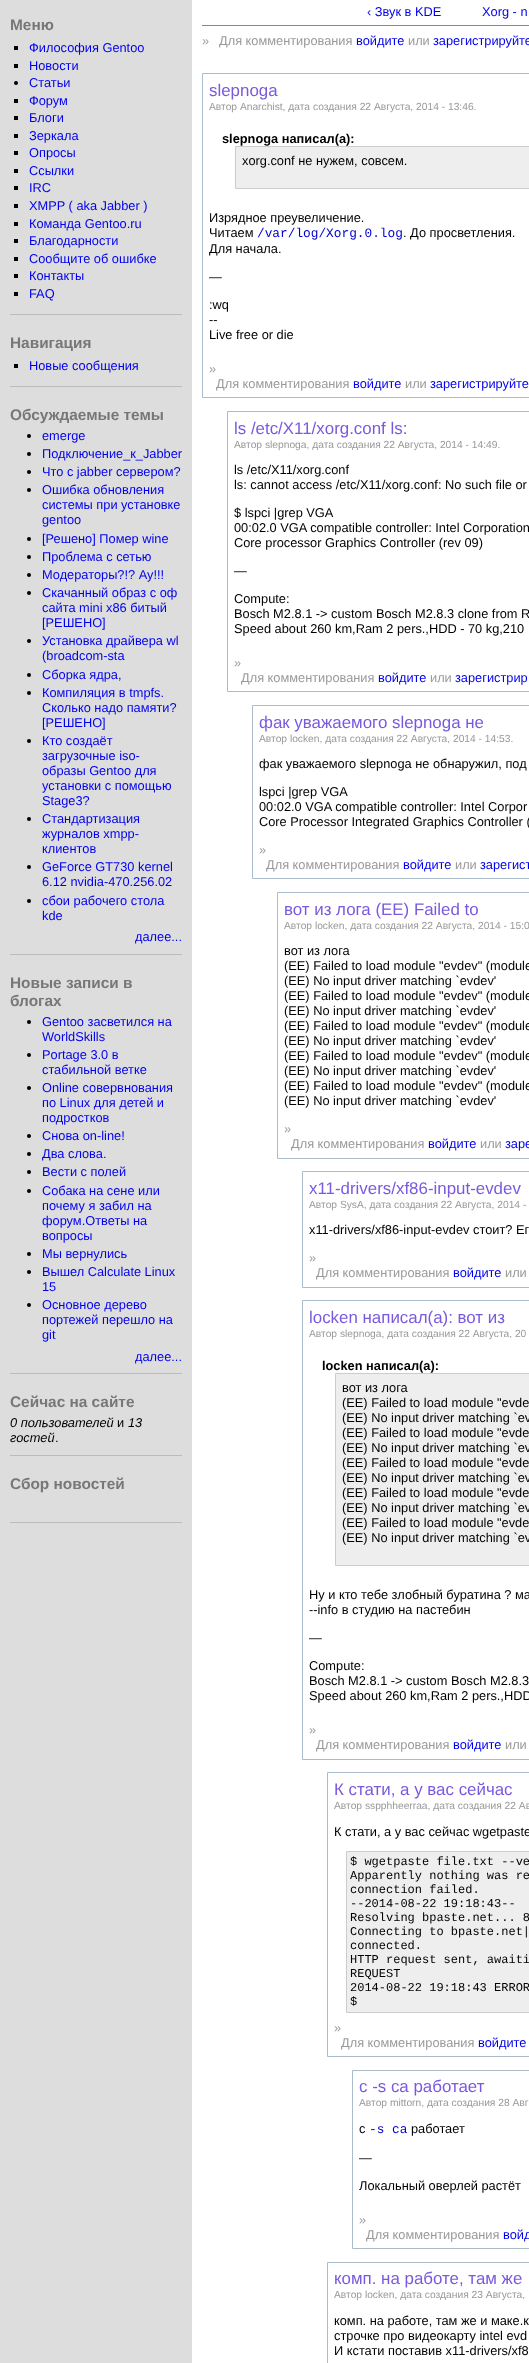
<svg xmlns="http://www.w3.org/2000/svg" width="529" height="2363">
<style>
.a{font:bold 15.4px Liberation Sans;fill:#777}
.b{font:12.8px Liberation Sans;fill:#00e}
.c{font:italic 12.8px Liberation Sans;fill:#000}
.d{font:12.8px Liberation Sans;fill:#000}
.e{font:12.8px Liberation Sans;fill:#999}
.f{font:16.9px Liberation Sans;fill:#7b59de}
.g{font:10.25px Liberation Sans;fill:#999}
.h{font:bold 12.8px Liberation Sans;fill:#000}
.i{font:12.8px Liberation Mono;fill:#00c}
.j{font:12px Liberation Mono;fill:#000}
</style>
<rect width="100%" height="100%" fill="#fff"/>
<path fill="#ddd" d="M0 0h192v2363H0z"/>
<path fill="#bbb" d="M10 314h172v1H10z"/>
<path fill="#000" d="M14 46h4v4H14z"/>
<path fill="#000" d="M14 64h4v4H14z"/>
<circle fill="#000" cx="16" cy="83" r="2"/>
<path fill="#000" d="M14 99h4v4H14z"/>
<path fill="#000" d="M14 116h4v4H14z"/>
<path fill="#000" d="M14 134h4v4H14z"/>
<path fill="#000" d="M14 151h4v4H14z"/>
<path fill="#000" d="M14 169h4v4H14z"/>
<path fill="#000" d="M14 186h4v4H14z"/>
<path fill="#000" d="M14 204h4v4H14z"/>
<path fill="#000" d="M14 222h4v4H14z"/>
<path fill="#000" d="M14 239h4v4H14z"/>
<path fill="#000" d="M14 257h4v4H14z"/>
<path fill="#000" d="M14 274h4v4H14z"/>
<path fill="#000" d="M14 292h4v4H14z"/>
<path fill="#bbb" d="M10 386h172v1H10z"/>
<path fill="#000" d="M14 364h4v4H14z"/>
<path fill="#bbb" d="M10 954h172v1H10z"/>
<circle fill="#000" cx="29" cy="436" r="2"/>
<circle fill="#000" cx="29" cy="454" r="2"/>
<circle fill="#000" cx="29" cy="472" r="2"/>
<circle fill="#000" cx="29" cy="490" r="2"/>
<circle fill="#000" cx="29" cy="539" r="2"/>
<circle fill="#000" cx="29" cy="557" r="2"/>
<circle fill="#000" cx="29" cy="575" r="2"/>
<circle fill="#000" cx="29" cy="593" r="2"/>
<circle fill="#000" cx="29" cy="641" r="2"/>
<circle fill="#000" cx="29" cy="675" r="2"/>
<circle fill="#000" cx="29" cy="693" r="2"/>
<circle fill="#000" cx="29" cy="741" r="2"/>
<circle fill="#000" cx="29" cy="819" r="2"/>
<circle fill="#000" cx="29" cy="867" r="2"/>
<circle fill="#000" cx="29" cy="901" r="2"/>
<path fill="#bbb" d="M10 1373h172v1H10z"/>
<circle fill="#000" cx="29" cy="1022" r="2"/>
<circle fill="#000" cx="29" cy="1055" r="2"/>
<circle fill="#000" cx="29" cy="1088" r="2"/>
<circle fill="#000" cx="29" cy="1136" r="2"/>
<circle fill="#000" cx="29" cy="1154" r="2"/>
<circle fill="#000" cx="29" cy="1172" r="2"/>
<circle fill="#000" cx="29" cy="1191" r="2"/>
<circle fill="#000" cx="29" cy="1254" r="2"/>
<circle fill="#000" cx="29" cy="1272" r="2"/>
<circle fill="#000" cx="29" cy="1305" r="2"/>
<path fill="#bbb" d="M10 1455h172v1H10z"/>
<path fill="#bbb" d="M10 1522h172v1H10z"/>
<path fill="#888" d="M202 25h327v1H202z"/>
<path fill="none" stroke="#abc" d="M202.5 73.5h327v324H202.5z"/>
<path fill="#eee" stroke="#ccc" d="M235.5 146.5h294v42H235.5z"/>
<path fill="none" stroke="#abc" d="M227.5 411.5h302v280H227.5z"/>
<path fill="none" stroke="#abc" d="M252.5 705.5h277v173H252.5z"/>
<path fill="none" stroke="#abc" d="M277.5 892.5h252v266H277.5z"/>
<path fill="none" stroke="#abc" d="M302.5 1171.5h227v116H302.5z"/>
<path fill="none" stroke="#abc" d="M302.5 1300.5h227v459H302.5z"/>
<path fill="#eee" stroke="#ccc" d="M335.5 1373.5h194v192H335.5z"/>
<path fill="none" stroke="#abc" d="M327.5 1772.5h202v284H327.5z"/>
<path fill="#eee" stroke="#ccc" d="M346.5 1851.5h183v161H346.5z"/>
<path fill="none" stroke="#abc" d="M352.5 2070.5h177v178H352.5z"/>
<path fill="none" stroke="#abc" d="M327.5 2262.5h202v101H327.5z"/>
<text class="a" x="10" y="30">Меню</text>
<text class="b" x="29" y="52">Философия Gentoo</text>
<text class="b" x="29" y="70">Новости</text>
<text class="b" x="29" y="87">Статьи</text>
<text class="b" x="29" y="105">Форум</text>
<text class="b" x="29" y="122">Блоги</text>
<text class="b" x="29" y="140">Зеркала</text>
<text class="b" x="29" y="157">Опросы</text>
<text class="b" x="29" y="175">Ссылки</text>
<text class="b" x="29" y="192">IRC</text>
<text class="b" x="29" y="210">XMPP ( aka Jabber )</text>
<text class="b" x="29" y="228">Команда Gentoo.ru</text>
<text class="b" x="29" y="245">Благодарности</text>
<text class="b" x="29" y="263">Сообщите об ошибке</text>
<text class="b" x="29" y="280">Контакты</text>
<text class="b" x="29" y="298">FAQ</text>
<text class="a" x="10" y="348">Навигация</text>
<text class="b" x="29" y="370">Новые сообщения</text>
<text class="a" x="10" y="420">Обсуждаемые темы</text>
<text class="b" x="42" y="440">emerge</text>
<text class="b" x="42" y="458">Подключение_к_Jabber</text>
<text class="b" x="42" y="476">Что с jabber сервером?</text>
<text class="b" x="42" y="494">Ошибка обновления</text>
<text class="b" x="42" y="509">системы при установке</text>
<text class="b" x="42" y="524">gentoo</text>
<text class="b" x="42" y="543">[Решено] Помер wine</text>
<text class="b" x="42" y="561">Проблема с сетью</text>
<text class="b" x="42" y="579">Модераторы?!? Ау!!!</text>
<text class="b" x="42" y="597">Скачанный образ с оф</text>
<text class="b" x="42" y="612">сайта mini x86 битый</text>
<text class="b" x="42" y="627">[РЕШЕНО]</text>
<text class="b" x="42" y="645">Установка драйвера wl</text>
<text class="b" x="42" y="660">(broadcom-sta</text>
<text class="b" x="42" y="679">Сборка ядра,</text>
<text class="b" x="42" y="697">Компиляция в tmpfs.</text>
<text class="b" x="42" y="712">Сколько надо памяти?</text>
<text class="b" x="42" y="727">[РЕШЕНО]</text>
<text class="b" x="42" y="745">Кто создаёт</text>
<text class="b" x="42" y="760">загрузочные iso-</text>
<text class="b" x="42" y="775">образы Gentoo для</text>
<text class="b" x="42" y="790">установки с помощью</text>
<text class="b" x="42" y="805">Stage3?</text>
<text class="b" x="42" y="823">Стандартизация</text>
<text class="b" x="42" y="838">журналов xmpp-</text>
<text class="b" x="42" y="853">клиентов</text>
<text class="b" x="42" y="871">GeForce GT730 kernel</text>
<text class="b" x="42" y="886">6.12 nvidia-470.256.02</text>
<text class="b" x="42" y="905">сбои рабочего стола</text>
<text class="b" x="42" y="920">kde</text>
<text class="b" x="135" y="941">далее...</text>
<text class="a" x="10" y="988">Новые записи в</text>
<text class="a" x="10" y="1006">блогах</text>
<text class="b" x="42" y="1026">Gentoo засветился на</text>
<text class="b" x="42" y="1041">WorldSkills</text>
<text class="b" x="42" y="1059">Portage 3.0 в</text>
<text class="b" x="42" y="1074">стабильной ветке</text>
<text class="b" x="42" y="1092">Online совервнования</text>
<text class="b" x="42" y="1107">по Linux для детей и</text>
<text class="b" x="42" y="1122">подростков</text>
<text class="b" x="42" y="1140">Снова on-line!</text>
<text class="b" x="42" y="1158">Два слова.</text>
<text class="b" x="42" y="1176">Вести с полей</text>
<text class="b" x="42" y="1195">Собака на сене или</text>
<text class="b" x="42" y="1210">почему я забил на</text>
<text class="b" x="42" y="1225">форум.Ответы на</text>
<text class="b" x="42" y="1240">вопросы</text>
<text class="b" x="42" y="1258">Мы вернулись</text>
<text class="b" x="42" y="1276">Вышел Calculate Linux</text>
<text class="b" x="42" y="1291">15</text>
<text class="b" x="42" y="1309">Основное дерево</text>
<text class="b" x="42" y="1324">портежей перешло на</text>
<text class="b" x="42" y="1339">git</text>
<text class="b" x="135" y="1361">далее...</text>
<text class="a" x="10" y="1407">Сейчас на сайте</text>
<text class="c" x="10" y="1427">0 пользователей</text>
<text class="d" x="117" y="1427">и</text>
<text class="c" x="128" y="1427">13</text>
<text class="c" x="10" y="1442">гостей</text>
<text class="d" x="55" y="1442">.</text>
<text class="a" x="10" y="1489">Сбор новостей</text>
<text class="b" x="367" y="16">‹ Звук в KDE</text>
<text class="b" x="482" y="16">Xorg - n</text>
<text class="e" x="202" y="45">»</text>
<text class="e" x="219" y="45">Для комментирования</text>
<text class="b" x="356" y="45">войдите</text>
<text class="e" x="408" y="45">или</text>
<text class="b" x="433" y="45">зарегистрируйте</text>
<text class="f" x="209" y="96">slepnoga</text>
<text class="g" x="209" y="110">Автор Anarchist, дата создания 22 Августа, 2014 - 13:46.</text>
<text class="h" x="222" y="143">slepnoga написал(а):</text>
<text class="d" x="242" y="165">xorg.conf не нужем, совсем.</text>
<text class="d" x="209" y="222">Изрядное преувеличение.</text>
<text class="d" x="209" y="237">Читаем</text>
<text class="i" x="257" y="237">/var/log/Xorg.0.log</text>
<text class="d" x="403" y="237">. До просветления.</text>
<text class="d" x="209" y="253">Для начала.</text>
<text class="d" x="209" y="281">—</text>
<text class="d" x="209" y="309">:wq</text>
<text class="d" x="209" y="324">--</text>
<text class="d" x="209" y="339">Live free or die</text>
<text class="e" x="209" y="373">»</text>
<text class="e" x="216" y="388">Для комментирования</text>
<text class="b" x="353" y="388">войдите</text>
<text class="e" x="405" y="388">или</text>
<text class="b" x="430" y="388">зарегистрируйте</text>
<text class="f" x="234" y="434">ls /etc/X11/xorg.conf ls:</text>
<text class="g" x="234" y="448">Автор slepnoga, дата создания 22 Августа, 2014 - 14:49.</text>
<text class="d" x="234" y="474">ls /etc/X11/xorg.conf</text>
<text class="d" x="234" y="489">ls: cannot access /etc/X11/xorg.conf: No such file or</text>
<text class="d" x="234" y="517">$ lspci |grep VGA</text>
<text class="d" x="234" y="532">00:02.0 VGA compatible controller: Intel Corporation</text>
<text class="d" x="234" y="547">Core processor Graphics Controller (rev 09)</text>
<text class="d" x="234" y="575">—</text>
<text class="d" x="234" y="603">Compute:</text>
<text class="d" x="234" y="618">Bosch M2.8.1 -&gt; custom Bosch M2.8.3 clone from R</text>
<text class="d" x="234" y="633">Speed about 260 km,Ram 2 pers.,HDD - 70 kg,210</text>
<text class="e" x="234" y="667">»</text>
<text class="e" x="241" y="682">Для комментирования</text>
<text class="b" x="378" y="682">войдите</text>
<text class="e" x="430" y="682">или</text>
<text class="b" x="455" y="682">зарегистрир</text>
<text class="f" x="259" y="728">фак уважаемого slepnoga не</text>
<text class="g" x="259" y="742">Автор locken, дата создания 22 Августа, 2014 - 14:53.</text>
<text class="d" x="259" y="768">фак уважаемого slepnoga не обнаружил, под</text>
<text class="d" x="259" y="796">lspci |grep VGA</text>
<text class="d" x="259" y="811">00:02.0 VGA compatible controller: Intel Corpor</text>
<text class="d" x="259" y="826">Core Processor Integrated Graphics Controller (</text>
<text class="e" x="259" y="854">»</text>
<text class="e" x="266" y="869">Для комментирования</text>
<text class="b" x="403" y="869">войдите</text>
<text class="e" x="455" y="869">или</text>
<text class="b" x="480" y="869">зарегист</text>
<text class="f" x="284" y="915">вот из лога (EE) Failed to</text>
<text class="g" x="284" y="929">Автор locken, дата создания 22 Августа, 2014 - 15:0</text>
<text class="d" x="284" y="955">вот из лога</text>
<text class="d" x="284" y="970">(EE) Failed to load module "evdev" (module</text>
<text class="d" x="284" y="985">(EE) No input driver matching `evdev'</text>
<text class="d" x="284" y="1000">(EE) Failed to load module "evdev" (module</text>
<text class="d" x="284" y="1015">(EE) No input driver matching `evdev'</text>
<text class="d" x="284" y="1030">(EE) Failed to load module "evdev" (module</text>
<text class="d" x="284" y="1045">(EE) No input driver matching `evdev'</text>
<text class="d" x="284" y="1060">(EE) Failed to load module "evdev" (module</text>
<text class="d" x="284" y="1075">(EE) No input driver matching `evdev'</text>
<text class="d" x="284" y="1090">(EE) Failed to load module "evdev" (module</text>
<text class="d" x="284" y="1105">(EE) No input driver matching `evdev'</text>
<text class="e" x="284" y="1133">»</text>
<text class="e" x="291" y="1148">Для комментирования</text>
<text class="b" x="428" y="1148">войдите</text>
<text class="e" x="480" y="1148">или</text>
<text class="b" x="505" y="1148">заре</text>
<text class="f" x="309" y="1194">x11-drivers/xf86-input-evdev</text>
<text class="g" x="309" y="1208">Автор SysA, дата создания 22 Августа, 2014 -</text>
<text class="d" x="309" y="1234">x11-drivers/xf86-input-evdev стоит? Ег</text>
<text class="e" x="309" y="1262">»</text>
<text class="e" x="316" y="1277">Для комментирования</text>
<text class="b" x="453" y="1277">войдите</text>
<text class="e" x="505" y="1277">или</text>
<text class="f" x="309" y="1323">locken написал(а): вот из</text>
<text class="g" x="309" y="1337">Автор slepnoga, дата создания 22 Августа, 20</text>
<text class="h" x="322" y="1370">locken написал(а):</text>
<text class="d" x="342" y="1392">вот из лога</text>
<text class="d" x="342" y="1407">(EE) Failed to load module "evde</text>
<text class="d" x="342" y="1422">(EE) No input driver matching `ev</text>
<text class="d" x="342" y="1437">(EE) Failed to load module "evde</text>
<text class="d" x="342" y="1452">(EE) No input driver matching `ev</text>
<text class="d" x="342" y="1467">(EE) Failed to load module "evde</text>
<text class="d" x="342" y="1482">(EE) No input driver matching `ev</text>
<text class="d" x="342" y="1497">(EE) Failed to load module "evde</text>
<text class="d" x="342" y="1512">(EE) No input driver matching `ev</text>
<text class="d" x="342" y="1527">(EE) Failed to load module "evde</text>
<text class="d" x="342" y="1542">(EE) No input driver matching `ev</text>
<text class="d" x="309" y="1599">Ну и кто тебе злобный буратина ? ма</text>
<text class="d" x="309" y="1614">--info в студию на пастебин</text>
<text class="d" x="309" y="1642">—</text>
<text class="d" x="309" y="1670">Compute:</text>
<text class="d" x="309" y="1685">Bosch M2.8.1 -&gt; custom Bosch M2.8.3</text>
<text class="d" x="309" y="1700">Speed about 260 km,Ram 2 pers.,HDD</text>
<text class="e" x="309" y="1734">»</text>
<text class="e" x="316" y="1749">Для комментирования</text>
<text class="b" x="453" y="1749">войдите</text>
<text class="e" x="505" y="1749">или</text>
<text class="f" x="334" y="1795">К стати, а у вас сейчас</text>
<text class="g" x="334" y="1809">Автор sspphheerraa, дата создания 22 Ав</text>
<text class="d" x="334" y="1836">К стати, а у вас сейчас wgetpaste</text>
<text class="j" x="350" y="1865">$ wgetpaste file.txt --ve</text>
<text class="j" x="350" y="1879">Apparently nothing was re</text>
<text class="j" x="350" y="1893">connection failed.</text>
<text class="j" x="350" y="1907">--2014-08-22 19:18:43--</text>
<text class="j" x="350" y="1921">Resolving bpaste.net... 8</text>
<text class="j" x="350" y="1935">Connecting to bpaste.net|</text>
<text class="j" x="350" y="1949">connected.</text>
<text class="j" x="350" y="1963">HTTP request sent, awaiti</text>
<text class="j" x="350" y="1977">REQUEST</text>
<text class="j" x="350" y="1991">2014-08-22 19:18:43 ERROR</text>
<text class="j" x="350" y="2005">$</text>
<text class="e" x="334" y="2032">»</text>
<text class="e" x="341" y="2047">Для комментирования</text>
<text class="b" x="478" y="2047">войдите</text>
<text class="f" x="359" y="2092">c -s ca работает</text>
<text class="g" x="359" y="2106">Автор mittorn, дата создания 28 Авг</text>
<text class="d" x="359" y="2133">c</text>
<text class="i" x="369" y="2133">-s ca</text>
<text class="d" x="411" y="2133">работает</text>
<text class="d" x="359" y="2162">—</text>
<text class="d" x="359" y="2190">Локальный оверлей растёт</text>
<text class="e" x="359" y="2224">»</text>
<text class="e" x="366" y="2239">Для комментирования</text>
<text class="b" x="503" y="2239">войд</text>
<text class="f" x="334" y="2284">комп. на работе, там же</text>
<text class="g" x="334" y="2298">Автор locken, дата создания 23 Августа,</text>
<text class="d" x="334" y="2325">комп. на работе, там же и маке.к</text>
<text class="d" x="334" y="2340">строчке про видеокарту intel evd</text>
<text class="d" x="334" y="2355">И кстати поставив x11-drivers/xf8</text>
</svg>
